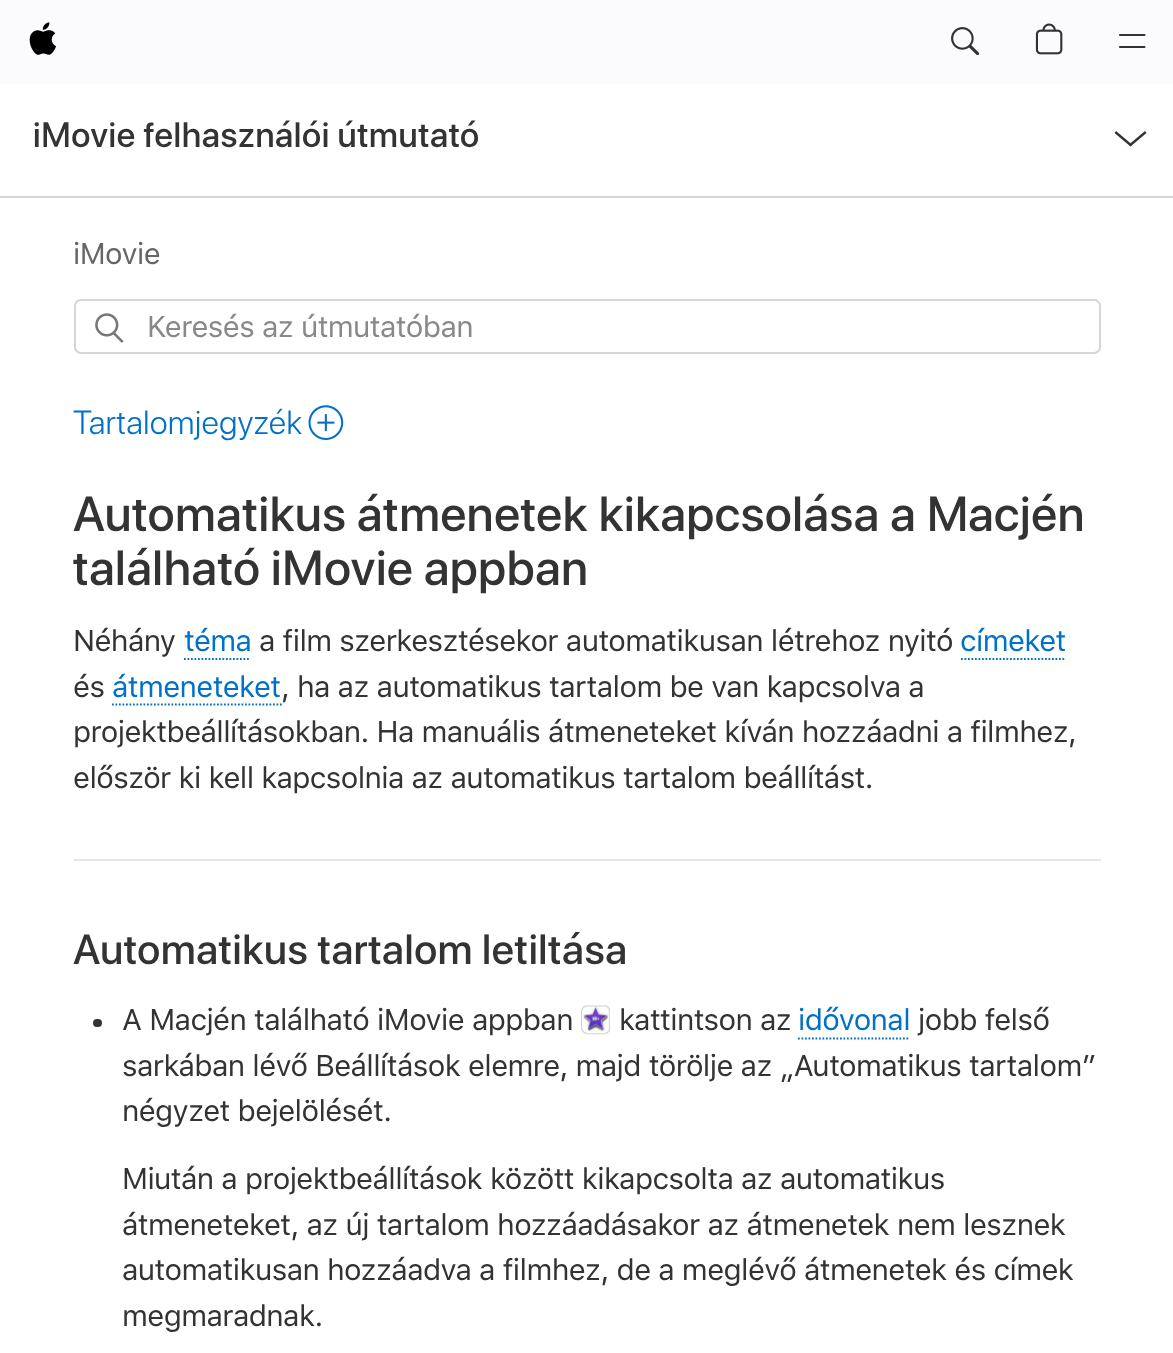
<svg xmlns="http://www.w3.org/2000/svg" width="1173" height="1353">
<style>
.a{font:500 35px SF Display;letter-spacing:0.6px;fill:#333}
.b{font:29.75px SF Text;letter-spacing:-0.62px;fill:#666}
.c{font:29.75px SF Text;letter-spacing:-0.62px;fill:#888}
.d{font:300 33.25px SF Display;letter-spacing:0.6px;fill:#0070c9}
.e{font:500 49px SF Display;letter-spacing:0.6px;fill:#333}
.f{font:29.75px SF Text;letter-spacing:-0.62px;fill:#333}
.g{font:29.75px SF Text;letter-spacing:-0.62px;fill:#0070c9}
.h{font:500 42px SF Display;letter-spacing:0.6px;fill:#333}
</style>
<rect width="100%" height="100%" fill="#fff"/>
<path fill="#fbfbfd" d="M0 0h1173v84H0z"/>
<image href="1.png" x="29" y="22" width="27" height="33"/>
<image href="2.png" x="951" y="27" width="29" height="29"/>
<image href="3.png" x="1035" y="23" width="28" height="32"/>
<path fill="none" stroke="#323233" stroke-width="2.1" stroke-linecap="round" stroke-linejoin="round" d="M1120 47h24.5m-24.5-12h24.5"/>
<path fill="#333" d="M1116 131l16 13.5l-1.5 2l-16-13.5z"/>
<path fill="#333" d="M1129 144.5l16-13.5l1.5 2l-16 13.5z"/>
<path fill="#d6d6d6" d="M0 196h1173v2H0z"/>
<rect fill="none" stroke="#d6d6d6" stroke-width="2" x="75" y="300" width="1025" height="53" rx="6"/>
<image href="4.png" x="95" y="313" width="29" height="30"/>
<image href="5.png" x="308" y="405" width="36" height="35"/>
<path fill="none" stroke="#0070c9" stroke-width="1.8" stroke-dasharray="1.75 1.75" d="M184 659h66"/>
<path fill="none" stroke="#0070c9" stroke-width="1.8" stroke-dasharray="1.75 1.75" d="M961 659h105"/>
<path fill="none" stroke="#0070c9" stroke-width="1.8" stroke-dasharray="1.75 1.75" d="M112 704.5h170"/>
<path fill="#e6e6e6" d="M74 859h1027v2H74z"/>
<rect fill="#333" x="93" y="1019" width="9" height="8" rx="4"/>
<image href="6.png" x="581" y="1005" width="29" height="30"/>
<path fill="none" stroke="#0070c9" stroke-width="1.8" stroke-dasharray="1.75 1.75" d="M798 1038.5h112"/>
<text class="a" x="33" y="147">iMovie felhasználói útmutató</text>
<text class="b" x="73" y="264">iMovie</text>
<text class="c" x="147" y="337">Keresés az útmutatóban</text>
<text class="d" x="73" y="434">Tartalomjegyzék</text>
<text class="e" x="73" y="531">Automatikus átmenetek kikapcsolása a Macjén</text>
<text class="e" x="73" y="585">található iMovie appban</text>
<text class="f" x="73" y="651">Néhány</text>
<text class="g" x="184" y="651">téma</text>
<text class="f" x="259" y="651">a film szerkesztésekor automatikusan létrehoz nyitó</text>
<text class="g" x="960" y="651">címeket</text>
<text class="f" x="73" y="697">és</text>
<text class="g" x="112" y="697">átmeneteket</text>
<text class="f" x="281" y="697">, ha az automatikus tartalom be van kapcsolva a</text>
<text class="f" x="73" y="742">projektbeállításokban. Ha manuális átmeneteket kíván hozzáadni a filmhez,</text>
<text class="f" x="73" y="788">először ki kell kapcsolnia az automatikus tartalom beállítást.</text>
<text class="h" x="73" y="964">Automatikus tartalom letiltása</text>
<text class="f" x="122" y="1030">A Macjén található iMovie appban</text>
<text class="f" x="619" y="1030">kattintson az</text>
<text class="g" x="798" y="1030">idővonal</text>
<text class="f" x="918" y="1030">jobb felső</text>
<text class="f" x="122" y="1076">sarkában lévő Beállítások elemre, majd törölje az „Automatikus tartalom”</text>
<text class="f" x="122" y="1121">négyzet bejelölését.</text>
<text class="f" x="122" y="1189">Miután a projektbeállítások között kikapcsolta az automatikus</text>
<text class="f" x="122" y="1235">átmeneteket, az új tartalom hozzáadásakor az átmenetek nem lesznek</text>
<text class="f" x="122" y="1280">automatikusan hozzáadva a filmhez, de a meglévő átmenetek és címek</text>
<text class="f" x="122" y="1326">megmaradnak.</text>
</svg>
